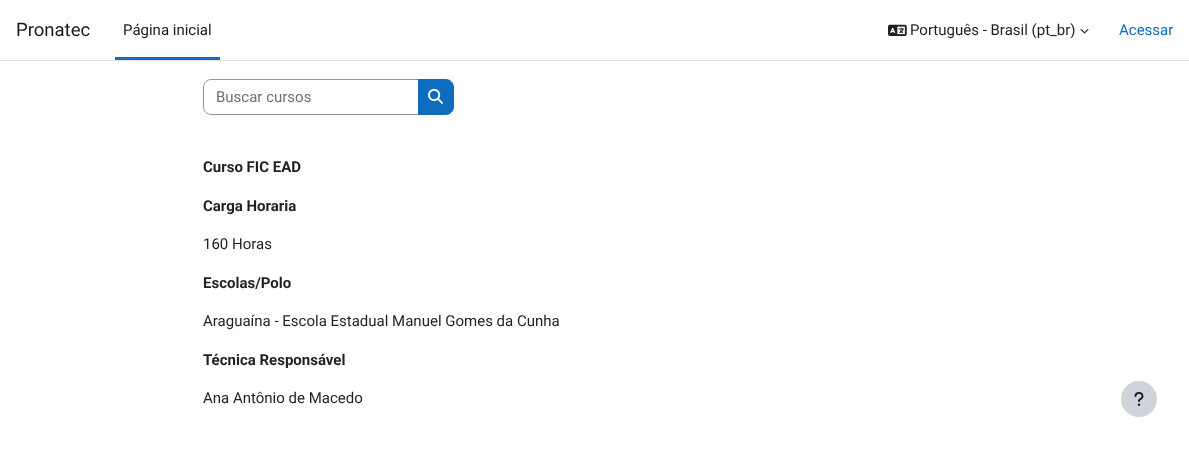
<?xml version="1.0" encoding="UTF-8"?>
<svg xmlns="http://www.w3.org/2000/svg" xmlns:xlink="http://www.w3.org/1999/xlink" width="1189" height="449">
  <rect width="100%" height="100%" fill="#ffffff" />
  <rect y="60" width="1189" height="1" fill="#dee2e6" />
  <rect x="115" y="57" width="105" height="3" fill="#0f6cbf" />
  <image x="888" y="24" width="19" height="12" xlink:href="image1.png" />
  <image x="1080" y="29" width="9" height="5" xlink:href="image2.png" />
  <path d="M 211 79.5 h 207.5 v 35 h -207.5 c -4 0 -7.5 -3.5 -7.5 -7.5 v -20 c 0 -4 3.5 -7.5 7.5 -7.5 z" fill="none" stroke="#8f959e" />
  <path d="M 418.5 79.5 h 27.5 c 4 0 7.5 3.5 7.5 7.5 v 20 c 0 4 -3.5 7.5 -7.5 7.5 h -27.5 z" fill="#0f6cbf" stroke="#0f6cbf" />
  <image x="428" y="88" width="15" height="16" xlink:href="image3.png" />
  <circle cx="1139" cy="399" r="18" fill="#ced4da" />
  <image x="1134" y="392" width="10" height="14" xlink:href="image4.png" />
  <text x="16" y="36" style="font-family: Roboto; font-size: 18.5px; fill: #1a1a1a">Pronatec</text>
  <text x="123" y="35" style="font-family: Roboto; font-size: 15px; fill: #1a1a1a">Página inicial</text>
  <text x="910" y="35" style="font-family: Roboto; font-size: 15px; fill: #1d2125">Português - Brasil (pt_br)</text>
  <text x="1119" y="35" style="font-family: Roboto; font-size: 15px; fill: #0f6cbf">Acessar</text>
  <text x="216" y="102" style="font-family: Roboto; font-size: 15px; fill: #6a737b">Buscar cursos</text>
  <text x="203" y="172" style="font-family: Roboto; font-size: 15px; font-weight: bold; fill: #1d2125">Curso FIC EAD</text>
  <text x="203" y="211" style="font-family: Roboto; font-size: 15px; font-weight: bold; fill: #1d2125">Carga Horaria</text>
  <text x="203" y="249" style="font-family: Roboto; font-size: 15px; fill: #1d2125">160 Horas</text>
  <text x="203" y="288" style="font-family: Roboto; font-size: 15px; font-weight: bold; fill: #1d2125">Escolas/Polo</text>
  <text x="203" y="326" style="font-family: Roboto; font-size: 15px; fill: #1d2125">Araguaína - Escola Estadual Manuel Gomes da Cunha</text>
  <text x="203" y="365" style="font-family: Roboto; font-size: 15px; font-weight: bold; fill: #1d2125">Técnica Responsável</text>
  <text x="203" y="403" style="font-family: Roboto; font-size: 15px; fill: #1d2125">Ana Antônio de Macedo</text>
</svg>
